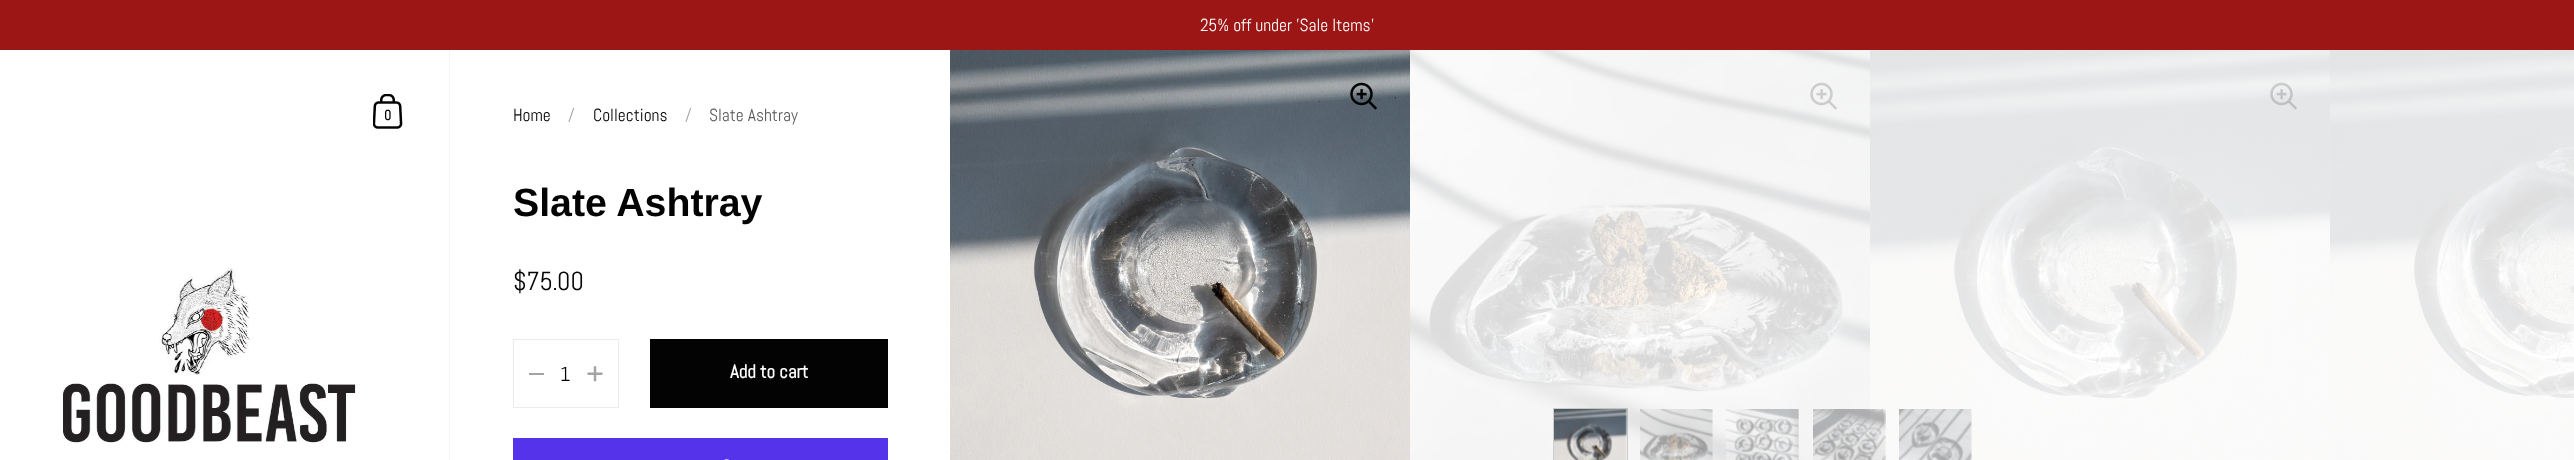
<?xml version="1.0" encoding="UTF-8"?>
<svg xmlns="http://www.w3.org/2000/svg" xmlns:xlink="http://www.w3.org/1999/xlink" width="2574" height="460">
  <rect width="100%" height="100%" fill="#ffffff" />
  <rect width="2574" height="50" fill="#9c1616" />
  <rect x="449" y="50" width="1" height="410" fill="#f5f5f5" />
  <image x="373" y="94" width="30" height="35" xlink:href="image1.png" />
  <image x="63" y="267" width="293" height="176" xlink:href="image2.png" />
  <rect x="513.5" y="339.5" width="105" height="68" fill="none" stroke="#ebebeb" />
  <rect x="529" y="373" width="15" height="2" fill="#a4a4a4" />
  <image x="587" y="366" width="16" height="16" xlink:href="image3.png" />
  <rect x="650" y="339" width="238" height="69" fill="#030303" />
  <rect x="513" y="438" width="375" height="22" fill="#5433eb" />
  <image x="724" y="459" width="5" height="1" xlink:href="image4.png" />
  <image x="950" y="50" width="460" height="410" xlink:href="image5.png" />
  <image x="1350" y="82" width="27" height="28" xlink:href="image6.png" />
  <image x="1410" y="50" width="460" height="410" xlink:href="image7.png" />
  <image x="1810" y="82" width="27" height="28" xlink:href="image8.png" />
  <image x="1870" y="50" width="460" height="410" xlink:href="image9.png" />
  <image x="2270" y="82" width="27" height="28" xlink:href="image10.png" />
  <image x="2330" y="50" width="244" height="410" xlink:href="image11.png" />
  <rect x="1553.5" y="408.5" width="74" height="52" fill="none" stroke="#030303" stroke-opacity="0.16" />
  <image x="1554" y="409" width="73" height="51" xlink:href="image12.png" />
  <image x="1640" y="409" width="73" height="51" xlink:href="image13.png" />
  <image x="1726" y="409" width="73" height="51" xlink:href="image14.png" />
  <image x="1813" y="409" width="73" height="51" xlink:href="image15.png" />
  <image x="1899" y="409" width="73" height="51" xlink:href="image16.png" />
  <text x="1200" y="31" style="font-family: Abel; font-size: 17.5px; fill: #ffffff">25% off under 'Sale Items'</text>
  <text x="384" y="120" style="font-family: Abel; font-size: 14px; font-weight: bold; fill: #030303">0</text>
  <text x="513" y="121" style="font-family: Abel; font-size: 17.5px; fill: #030303">Home</text>
  <text x="568" y="121" style="font-family: Abel; font-size: 17.5px; fill: #a4a4a4">/</text>
  <text x="593" y="121" style="font-family: Abel; font-size: 17.5px; fill: #030303">Collections</text>
  <text x="685" y="121" style="font-family: Abel; font-size: 17.5px; fill: #a4a4a4">/</text>
  <text x="709" y="121" style="font-family: Abel; font-size: 17.5px; fill: #595959">Slate Ashtray</text>
  <text x="513" y="216" style="font-family: Arimo; font-size: 39.25px; font-weight: bold; fill: #030303">Slate Ashtray</text>
  <text x="513" y="290" style="font-family: Abel; font-size: 26px; fill: #030303">$75.00</text>
  <text x="560" y="381" style="font-family: Abel; font-size: 20px; fill: #030303">1</text>
  <text x="730" y="378" style="font-family: Abel; font-size: 18.75px; font-weight: bold; fill: #ffffff">Add to cart</text>
</svg>
